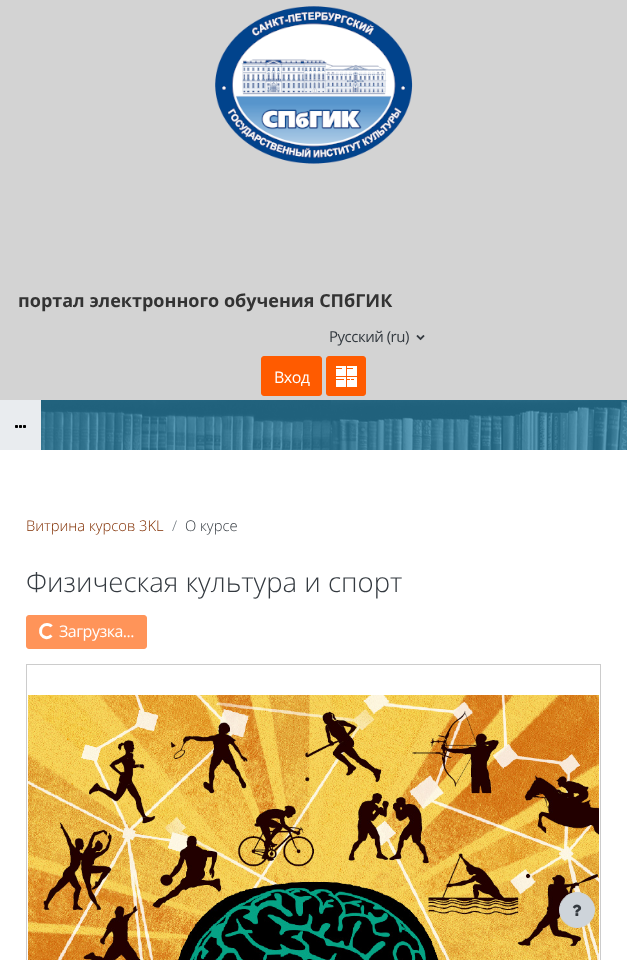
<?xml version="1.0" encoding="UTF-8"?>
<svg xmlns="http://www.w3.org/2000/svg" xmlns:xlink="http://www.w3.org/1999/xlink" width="627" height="960">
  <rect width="100%" height="100%" fill="#ffffff" />
  <rect width="627" height="400" fill="#d3d3d3" />
  <image x="215" y="6" width="198" height="158" xlink:href="image1.png" />
  <image x="416" y="335" width="9" height="6" xlink:href="image2.png" />
  <rect x="261.5" y="356.5" width="60" height="39" rx="2.5" fill="#ff5b00" stroke="#ff5b00" />
  <rect x="326.5" y="356.5" width="39" height="39" rx="2.5" fill="#ff5b00" stroke="#ff5b00" />
  <image x="336" y="366" width="21" height="21" xlink:href="image3.png" />
  <rect x="41" y="400" width="586" height="50" fill="#297fa2" />
  <image x="41" y="400" width="586" height="50" xlink:href="image4.png" />
  <rect y="400" width="41" height="50" fill="#e9ecef" />
  <image x="15" y="425" width="11" height="3" xlink:href="image5.png" />
  <rect x="26.5" y="615.5" width="120" height="33" rx="2.5" fill="#ff9459" stroke="#ff9459" />
  <path d="M 51.5 635.5 c -1.5 1.5 -3.5 2.5 -6 2 c -7.5 -1.5 -6 -13 1.5 -13 c 1.5 0 3.5 0.5 4.5 2" fill="none" stroke="#ffffff" stroke-width="3" />
  <image x="28" y="695" width="571" height="265" xlink:href="image6.png" />
  <rect x="26.5" y="664.5" width="574" height="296" fill="none" stroke="#cccccc" />
  <circle cx="577" cy="910" r="17.5" fill="#ced4da" stroke="#ced4da" />
  <image x="572" y="904" width="10" height="12" xlink:href="image7.png" />
  <text x="18" y="307" style="font-family: Open Sans; font-size: 18px; font-weight: bold; fill: #333333">портал электронного обучения СПбГИК</text>
  <text x="329" y="342" style="font-family: Open Sans; font-size: 15px; letter-spacing: -0.5px; fill: #343a40">Русский (ru)</text>
  <text x="274" y="383" style="font-family: Open Sans; font-size: 16px; letter-spacing: -0.5px; fill: #ffffff">Вход</text>
  <text x="26" y="531" style="font-family: Open Sans; font-size: 14.75px; font-weight: 300; fill: #802e00">Витрина курсов 3KL</text>
  <text x="172" y="531" style="font-family: Open Sans; font-size: 14.75px; font-weight: 300; fill: #6c757d">/</text>
  <text x="185" y="531" style="font-family: Open Sans; font-size: 14.75px; font-weight: 300; fill: #343a40">О курсе</text>
  <text x="26" y="592" style="font-family: Open Sans; font-size: 27.5px; font-weight: 300; fill: #343a40">Физическая культура и спорт</text>
  <text x="59" y="637" style="font-family: Open Sans; font-size: 16px; letter-spacing: -0.5px; fill: #ffffff">Загрузка...</text>
</svg>
